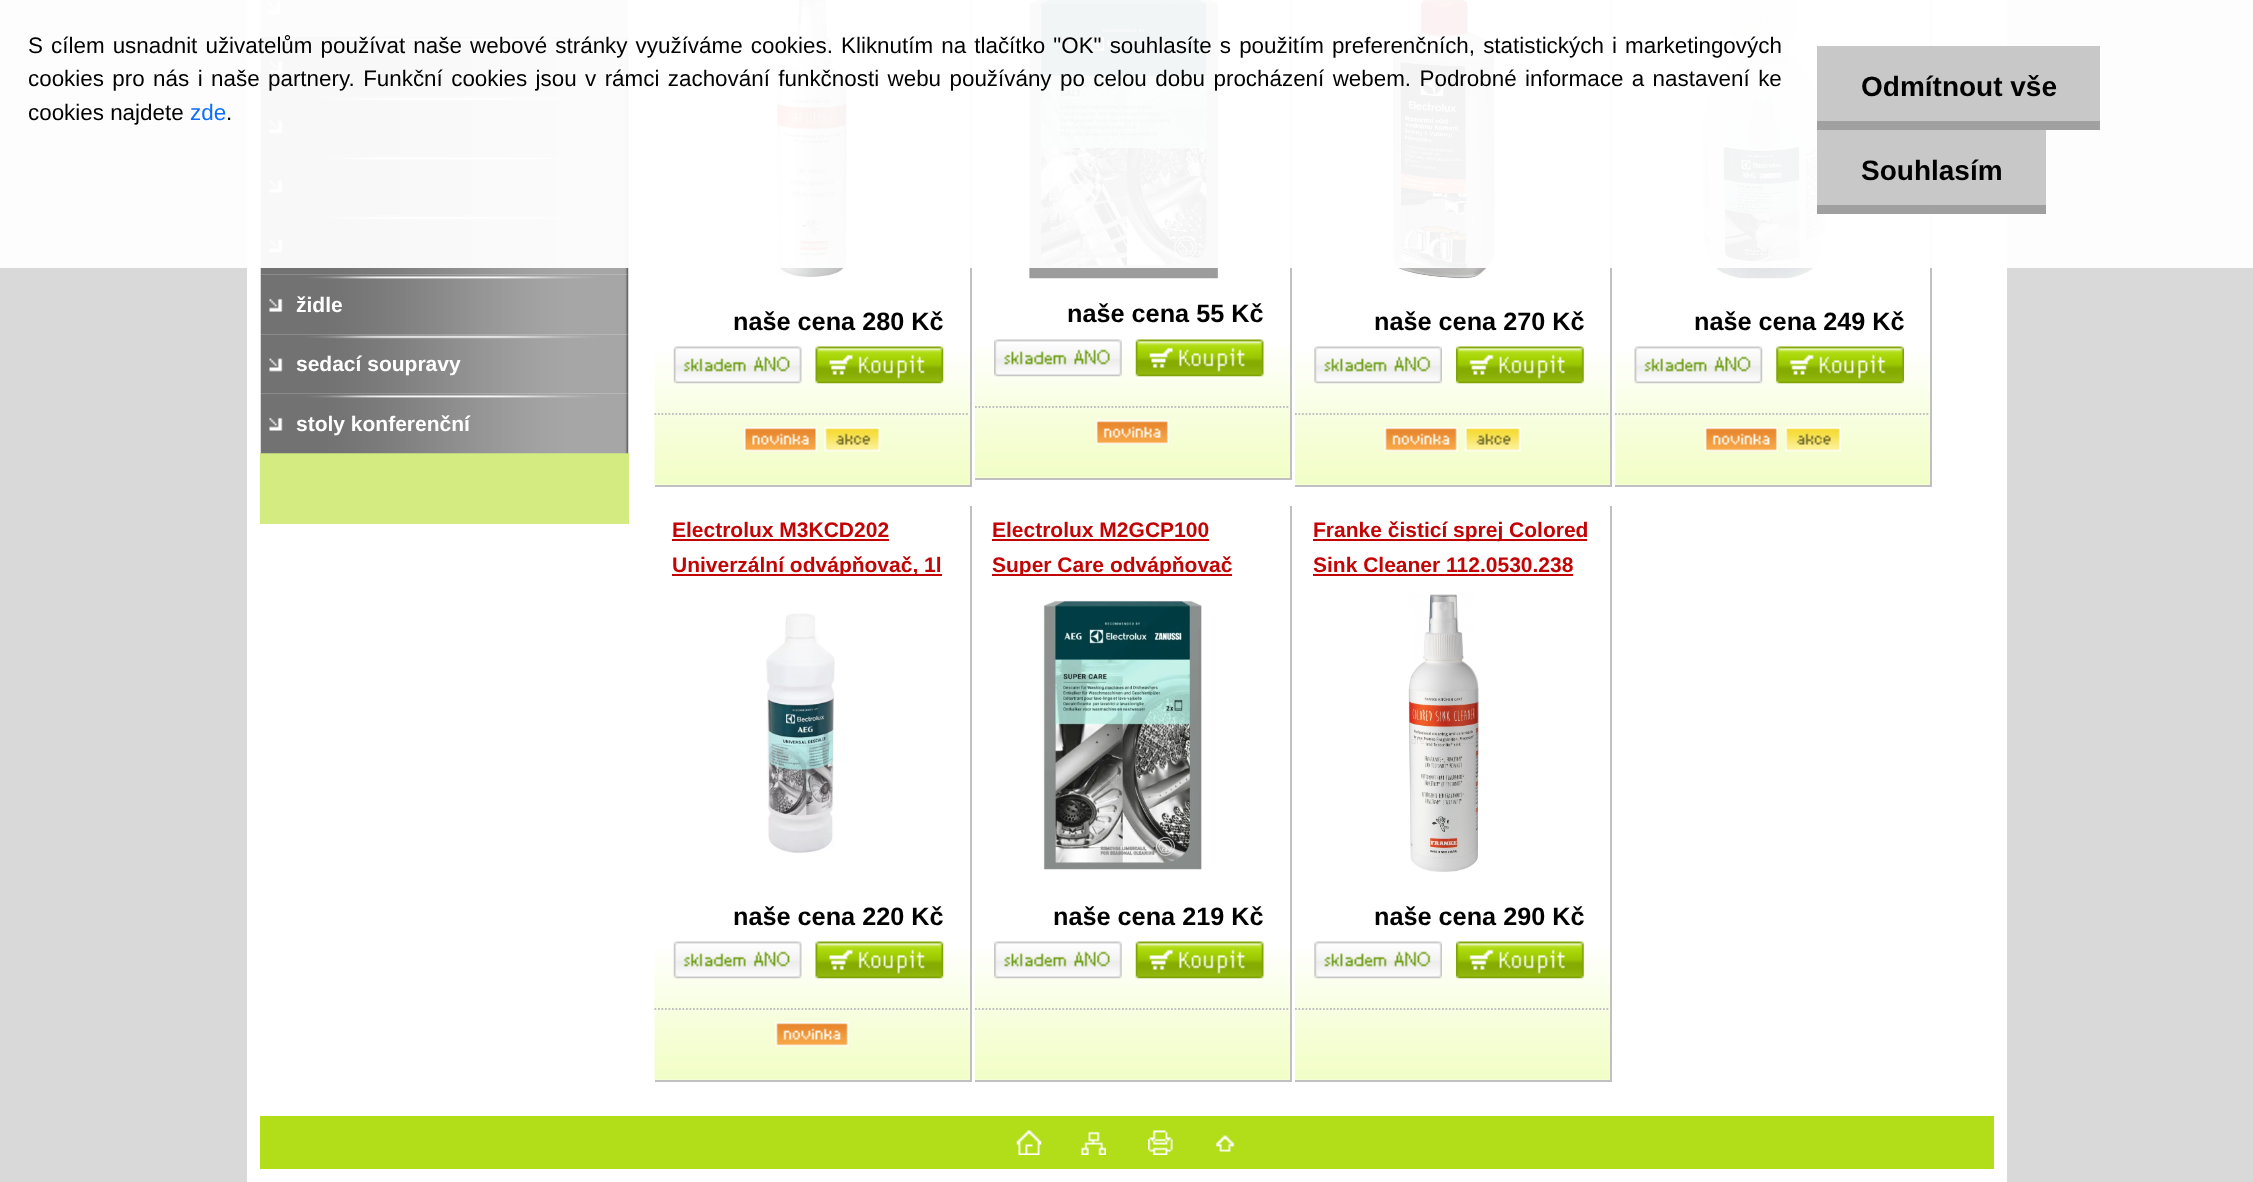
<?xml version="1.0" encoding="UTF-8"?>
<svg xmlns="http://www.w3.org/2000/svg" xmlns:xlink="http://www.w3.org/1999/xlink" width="2253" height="1182">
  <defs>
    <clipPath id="clip1"><rect x="655" y="506" width="315" height="70" /></clipPath>
    <clipPath id="clip2"><rect x="975" y="506" width="315" height="70" /></clipPath>
  </defs>
  <rect width="100%" height="100%" fill="#d9d9d9" />
  <rect x="247" width="1760" height="1182" fill="#ffffff" />
  <image x="260" y="0" width="369" height="37" xlink:href="image1.png" />
  <image x="260" y="36" width="369" height="61" xlink:href="image2.png" />
  <image x="260" y="96" width="369" height="60" xlink:href="image3.png" />
  <image x="260" y="155" width="369" height="61" xlink:href="image4.png" />
  <image x="260" y="215" width="369" height="60" xlink:href="image5.png" />
  <rect x="970" width="2" height="487" fill="#c0c0c0" />
  <image x="777" y="0" width="70" height="277" xlink:href="image9.png" />
  <rect x="1290" width="2" height="480" fill="#c0c0c0" />
  <image x="1029" y="0" width="189" height="279" xlink:href="image15.png" />
  <rect x="1610" width="2" height="487" fill="#c0c0c0" />
  <image x="1393" y="0" width="102" height="279" xlink:href="image20.png" />
  <rect x="1930" width="2" height="487" fill="#c0c0c0" />
  <image x="1701" y="0" width="126" height="279" xlink:href="image26.png" />
  <rect width="2253" height="268" fill="#ffffff" fill-opacity="0.95" />
  <rect x="1817" y="46" width="283" height="75" fill="#c8c8c8" />
  <rect x="1817" y="121" width="283" height="9" fill="#a0a0a0" />
  <rect x="1817" y="130" width="229" height="75" fill="#c8c8c8" />
  <rect x="1817" y="205" width="229" height="9" fill="#a0a0a0" />
  <image x="260" y="274" width="369" height="61" xlink:href="image6.png" />
  <image x="260" y="334" width="369" height="60" xlink:href="image3.png" />
  <rect x="260" y="453" width="369" height="71" fill="#d3eb80" />
  <image x="260" y="393" width="369" height="61" xlink:href="image7.png" />
  <image x="654" y="353" width="316" height="132" xlink:href="image8.png" />
  <rect x="655" y="485" width="316" height="2" fill="#c0c0c0" />
  <image x="673" y="346" width="129" height="38" xlink:href="image10.png" />
  <image x="815" y="346" width="129" height="38" xlink:href="image11.png" />
  <path d="M 654.5 414 h 315" fill="none" stroke="#c0c0c0" stroke-width="1.8" stroke-dasharray="1.75 1.75" />
  <image x="743" y="427" width="75" height="25" xlink:href="image12.png" />
  <image x="824" y="427" width="57" height="25" xlink:href="image13.png" />
  <image x="974" y="346" width="316" height="132" xlink:href="image14.png" />
  <rect x="975" y="478" width="317" height="2" fill="#c0c0c0" />
  <image x="994" y="339" width="128" height="38" xlink:href="image16.png" />
  <image x="1135" y="339" width="129" height="38" xlink:href="image17.png" />
  <path d="M 975 407 h 315" fill="none" stroke="#c0c0c0" stroke-width="1.8" stroke-dasharray="1.75 1.75" />
  <image x="1095" y="420" width="74" height="25" xlink:href="image18.png" />
  <image x="1295" y="353" width="315" height="132" xlink:href="image19.png" />
  <rect x="1295" y="485" width="317" height="2" fill="#c0c0c0" />
  <image x="1314" y="346" width="128" height="38" xlink:href="image21.png" />
  <image x="1456" y="346" width="128" height="38" xlink:href="image22.png" />
  <path d="M 1295 414 h 315" fill="none" stroke="#c0c0c0" stroke-width="1.8" stroke-dasharray="1.75 1.75" />
  <image x="1384" y="427" width="74" height="25" xlink:href="image23.png" />
  <image x="1464" y="427" width="57" height="25" xlink:href="image24.png" />
  <image x="1615" y="353" width="315" height="132" xlink:href="image25.png" />
  <rect x="1615" y="485" width="317" height="2" fill="#c0c0c0" />
  <image x="1634" y="346" width="129" height="38" xlink:href="image27.png" />
  <image x="1776" y="346" width="128" height="38" xlink:href="image28.png" />
  <path d="M 1615 414 h 315" fill="none" stroke="#c0c0c0" stroke-width="1.8" stroke-dasharray="1.75 1.75" />
  <image x="1704" y="427" width="74" height="25" xlink:href="image18.png" />
  <image x="1785" y="427" width="56" height="25" xlink:href="image29.png" />
  <image x="654" y="949" width="316" height="131" xlink:href="image30.png" />
  <rect x="970" y="506" width="2" height="576" fill="#c0c0c0" />
  <rect x="655" y="1080" width="316" height="2" fill="#c0c0c0" />
  <rect x="672" y="539" width="217" height="2" fill="#c30405" />
  <rect x="672" y="574" width="270" height="2" fill="#c30405" />
  <image x="766" y="613" width="69" height="240" xlink:href="image31.png" />
  <image x="673" y="941" width="129" height="38" xlink:href="image32.png" />
  <image x="815" y="941" width="129" height="38" xlink:href="image33.png" />
  <path d="M 654.5 1009 h 315" fill="none" stroke="#c0c0c0" stroke-width="1.8" stroke-dasharray="1.75 1.75" />
  <image x="775" y="1022" width="74" height="25" xlink:href="image23.png" />
  <image x="974" y="949" width="316" height="131" xlink:href="image34.png" />
  <rect x="1290" y="506" width="2" height="576" fill="#c0c0c0" />
  <rect x="975" y="1080" width="317" height="2" fill="#c0c0c0" />
  <rect x="992" y="539" width="217" height="2" fill="#c30405" />
  <rect x="992" y="574" width="240" height="2" fill="#c30405" />
  <image x="1043" y="600" width="159" height="270" xlink:href="image35.png" />
  <image x="994" y="941" width="128" height="38" xlink:href="image36.png" />
  <image x="1135" y="941" width="129" height="38" xlink:href="image37.png" />
  <path d="M 975 1009 h 315" fill="none" stroke="#c0c0c0" stroke-width="1.8" stroke-dasharray="1.75 1.75" />
  <image x="1295" y="949" width="315" height="131" xlink:href="image38.png" />
  <rect x="1610" y="506" width="2" height="576" fill="#c0c0c0" />
  <rect x="1295" y="1080" width="317" height="2" fill="#c0c0c0" />
  <rect x="1313" y="539" width="274" height="2" fill="#c30405" />
  <rect x="1313" y="574" width="260" height="2" fill="#c30405" />
  <image x="1408" y="594" width="71" height="278" xlink:href="image39.png" />
  <image x="1314" y="941" width="128" height="38" xlink:href="image40.png" />
  <image x="1456" y="941" width="128" height="38" xlink:href="image41.png" />
  <path d="M 1295 1009 h 315" fill="none" stroke="#c0c0c0" stroke-width="1.8" stroke-dasharray="1.75 1.75" />
  <rect x="260" y="1116" width="1734" height="53" fill="#b2de19" />
  <image x="1016" y="1130" width="26" height="25" xlink:href="image42.png" />
  <image x="1081" y="1131" width="25" height="24" xlink:href="image43.png" />
  <image x="1148" y="1130" width="25" height="25" xlink:href="image44.png" />
  <image x="1215" y="1135" width="20" height="17" xlink:href="image45.png" />
  <text x="28" y="53" word-spacing="1.9" style="font-family: Liberation Sans; font-size: 22.4px; fill: #000000">S cílem usnadnit uživatelům používat naše webové stránky využíváme cookies. Kliknutím na tlačítko "OK" souhlasíte s použitím preferenčních, statistických i marketingových</text>
  <text x="28" y="86" word-spacing="2.2" style="font-family: Liberation Sans; font-size: 22.4px; fill: #000000">cookies pro nás i naše partnery. Funkční cookies jsou v rámci zachování funkčnosti webu používány po celou dobu procházení webem. Podrobné informace a nastavení ke</text>
  <text x="28" y="120" style="font-family: Liberation Sans; font-size: 22.4px; fill: #000000">cookies najdete</text>
  <text x="190" y="120" style="font-family: Liberation Sans; font-size: 22.4px; fill: #0d6efd">zde</text>
  <text x="226" y="120" style="font-family: Liberation Sans; font-size: 22.4px; fill: #000000">.</text>
  <text x="1861" y="96" style="font-family: Liberation Sans; font-size: 28px; font-weight: bold; fill: #000000">Odmítnout vše</text>
  <text x="1861" y="180" style="font-family: Liberation Sans; font-size: 28px; font-weight: bold; fill: #000000">Souhlasím</text>
  <text x="296" y="312" style="font-family: Liberation Sans; font-size: 21px; font-weight: bold; fill: #ffffff">židle</text>
  <text x="296" y="371" style="font-family: Liberation Sans; font-size: 21px; font-weight: bold; fill: #ffffff">sedací soupravy</text>
  <text x="296" y="431" style="font-family: Liberation Sans; font-size: 21px; font-weight: bold; fill: #ffffff">stoly konferenční</text>
  <text x="733" y="330" style="font-family: Liberation Sans; font-size: 25.25px; font-weight: bold; fill: #000000">naše cena 280 Kč</text>
  <text x="1067" y="322" style="font-family: Liberation Sans; font-size: 25.25px; font-weight: bold; fill: #000000">naše cena 55 Kč</text>
  <text x="1374" y="330" style="font-family: Liberation Sans; font-size: 25.25px; font-weight: bold; fill: #000000">naše cena 270 Kč</text>
  <text x="1694" y="330" style="font-family: Liberation Sans; font-size: 25.25px; font-weight: bold; fill: #000000">naše cena 249 Kč</text>
  <text x="672" y="537" style="font-family: Liberation Sans; font-size: 21px; font-weight: bold; fill: #c30405">Electrolux M3KCD202</text>
  <g clip-path="url(#clip1)">
    <text x="672" y="572" style="font-family: Liberation Sans; font-size: 21px; font-weight: bold; fill: #c30405">Univerzální odvápňovač, 1l</text>
  </g>
  <text x="733" y="925" style="font-family: Liberation Sans; font-size: 25.25px; font-weight: bold; fill: #000000">naše cena 220 Kč</text>
  <text x="992" y="537" style="font-family: Liberation Sans; font-size: 21px; font-weight: bold; fill: #c30405">Electrolux M2GCP100</text>
  <g clip-path="url(#clip2)">
    <text x="992" y="572" style="font-family: Liberation Sans; font-size: 21px; font-weight: bold; fill: #c30405">Super Care odvápňovač</text>
  </g>
  <text x="1053" y="925" style="font-family: Liberation Sans; font-size: 25.25px; font-weight: bold; fill: #000000">naše cena 219 Kč</text>
  <text x="1313" y="537" style="font-family: Liberation Sans; font-size: 21px; font-weight: bold; fill: #c30405">Franke čisticí sprej Colored</text>
  <text x="1313" y="572" style="font-family: Liberation Sans; font-size: 21px; font-weight: bold; fill: #c30405">Sink Cleaner 112.0530.238</text>
  <text x="1374" y="925" style="font-family: Liberation Sans; font-size: 25.25px; font-weight: bold; fill: #000000">naše cena 290 Kč</text>
</svg>
